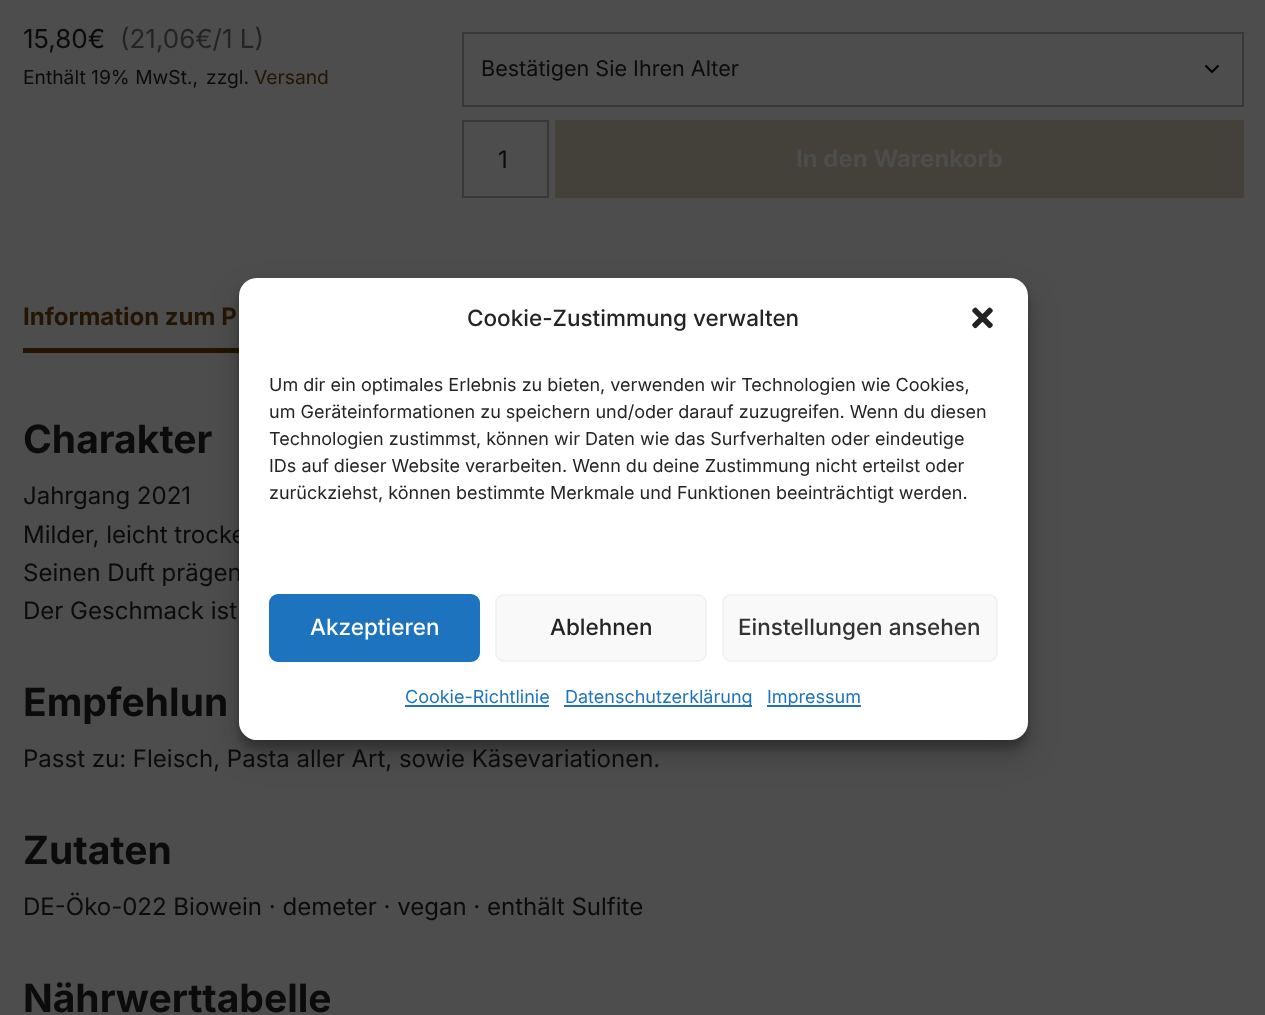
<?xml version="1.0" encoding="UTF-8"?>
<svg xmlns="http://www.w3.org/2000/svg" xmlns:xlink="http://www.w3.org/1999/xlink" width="1265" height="1015">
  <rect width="100%" height="100%" fill="#4d4d4d" />
  <path d="M 1206 66 l 6 6 l 6 -6" fill="none" stroke="#000000" stroke-width="2" stroke-linecap="round" stroke-linejoin="round" />
  <rect x="463" y="33" width="780" height="73" fill="none" stroke="#383838" stroke-width="2" />
  <rect x="463" y="121" width="85" height="76" fill="none" stroke="#383838" stroke-width="2" />
  <rect x="555" y="120" width="689" height="78" fill="#44403a" />
  <rect x="23" y="348" width="216" height="5" fill="#231404" />
  <rect x="239" y="287" width="789" height="462" rx="18" fill="#000000" fill-opacity="0.23" filter="blur(4.5px)" />
  <rect x="239" y="293" width="789" height="462" rx="18" fill="#000000" fill-opacity="0.19" filter="blur(15px)" />
  <text x="23" y="48" style="font-family: Inter; font-size: 26px; fill: #0c0b0b">15,80€</text>
  <text x="120" y="48" style="font-family: Inter; font-size: 26px; fill: #242424">(21,06€/1 L)</text>
  <text x="23" y="84" style="font-family: Inter; font-size: 19.25px; fill: #0c0b0b">Enthält 19% MwSt.,</text>
  <text x="206" y="84" style="font-family: Inter; font-size: 19.25px; fill: #0c0b0b">zzgl.</text>
  <text x="254" y="84" style="font-family: Inter; font-size: 19.25px; fill: #231404">Versand</text>
  <text x="481" y="76" style="font-family: Inter; font-size: 21.6px; fill: #0c0b0b">Bestätigen Sie Ihren Alter</text>
  <text x="498" y="168" style="font-family: Inter; font-size: 24px; fill: #0c0b0b">1</text>
  <text x="796" y="167" style="font-family: Inter; font-size: 24px; font-weight: bold; fill: #4d4d4d">In den Warenkorb</text>
  <text x="23" y="325" style="font-family: Inter; font-size: 24px; font-weight: bold; fill: #231404">Information zum P</text>
  <text x="23" y="453" style="font-family: Inter; font-size: 39px; font-weight: bold; fill: #0c0b0b">Charakter</text>
  <text x="23" y="504" style="font-family: Inter; font-size: 24px; fill: #0c0b0b">Jahrgang 2021</text>
  <text x="23" y="543" style="font-family: Inter; font-size: 24px; fill: #0c0b0b">Milder, leicht trocke</text>
  <text x="23" y="581" style="font-family: Inter; font-size: 24px; fill: #0c0b0b">Seinen Duft prägen</text>
  <text x="23" y="619" style="font-family: Inter; font-size: 24px; fill: #0c0b0b">Der Geschmack ist</text>
  <text x="23" y="716" style="font-family: Inter; font-size: 39px; font-weight: bold; fill: #0c0b0b">Empfehlun</text>
  <text x="23" y="767" style="font-family: Inter; font-size: 24px; fill: #0c0b0b">Passt zu: Fleisch, Pasta aller Art, sowie Käsevariationen.</text>
  <text x="23" y="864" style="font-family: Inter; font-size: 39px; font-weight: bold; fill: #0c0b0b">Zutaten</text>
  <text x="23" y="915" style="font-family: Inter; font-size: 24px; fill: #0c0b0b">DE-Öko-022 Biowein · demeter · vegan · enthält Sulfite</text>
  <text x="23" y="1012" style="font-family: Inter; font-size: 39px; font-weight: bold; fill: #0c0b0b">Nährwerttabelle</text>
  <rect x="239" y="278" width="789" height="462" rx="18" fill="#ffffff" />
  <text x="467" y="326" style="font-family: Inter; font-size: 22.5px; font-weight: 500; fill: #242424">Cookie-Zustimmung verwalten</text>
  <image x="972" y="307" width="21" height="22" xlink:href="image1.png" />
  <text x="269" y="391" style="font-family: Inter; font-size: 18px; fill: #242424">Um dir ein optimales Erlebnis zu bieten, verwenden wir Technologien wie Cookies,</text>
  <text x="269" y="418" style="font-family: Inter; font-size: 18px; fill: #242424">um Geräteinformationen zu speichern und/oder darauf zuzugreifen. Wenn du diesen</text>
  <text x="269" y="445" style="font-family: Inter; font-size: 18px; fill: #242424">Technologien zustimmst, können wir Daten wie das Surfverhalten oder eindeutige</text>
  <text x="269" y="472" style="font-family: Inter; font-size: 18px; fill: #242424">IDs auf dieser Website verarbeiten. Wenn du deine Zustimmung nicht erteilst oder</text>
  <text x="269" y="499" style="font-family: Inter; font-size: 18px; fill: #242424">zurückziehst, können bestimmte Merkmale und Funktionen beeinträchtigt werden.</text>
  <rect x="270" y="595" width="209" height="66" rx="8" fill="#1e73be" stroke="#1e73be" stroke-width="2" />
  <text x="310" y="635" style="font-family: Inter; font-size: 22.5px; font-weight: 500; fill: #ffffff">Akzeptieren</text>
  <rect x="496" y="595" width="210" height="66" rx="8" fill="#f9f9f9" stroke="#f2f2f2" stroke-width="2" />
  <text x="550" y="635" style="font-family: Inter; font-size: 22.5px; font-weight: 500; fill: #242424">Ablehnen</text>
  <rect x="723" y="595" width="274" height="66" rx="8" fill="#f9f9f9" stroke="#f2f2f2" stroke-width="2" />
  <text x="738" y="635" style="font-family: Inter; font-size: 22.5px; font-weight: 500; fill: #333333">Einstellungen ansehen</text>
  <text x="405" y="703" style="font-family: Inter; font-size: 18px; fill: #1e73be">Cookie-Richtlinie</text>
  <rect x="405" y="705" width="144" height="2" fill="#1e73be" />
  <rect x="564" y="705" width="188" height="2" fill="#1e73be" />
  <text x="565" y="703" style="font-family: Inter; font-size: 18px; fill: #1e73be">Datenschutzerklärung</text>
  <rect x="767" y="705" width="94" height="2" fill="#1e73be" />
  <text x="767" y="703" style="font-family: Inter; font-size: 18px; fill: #1e73be">Impressum</text>
</svg>
